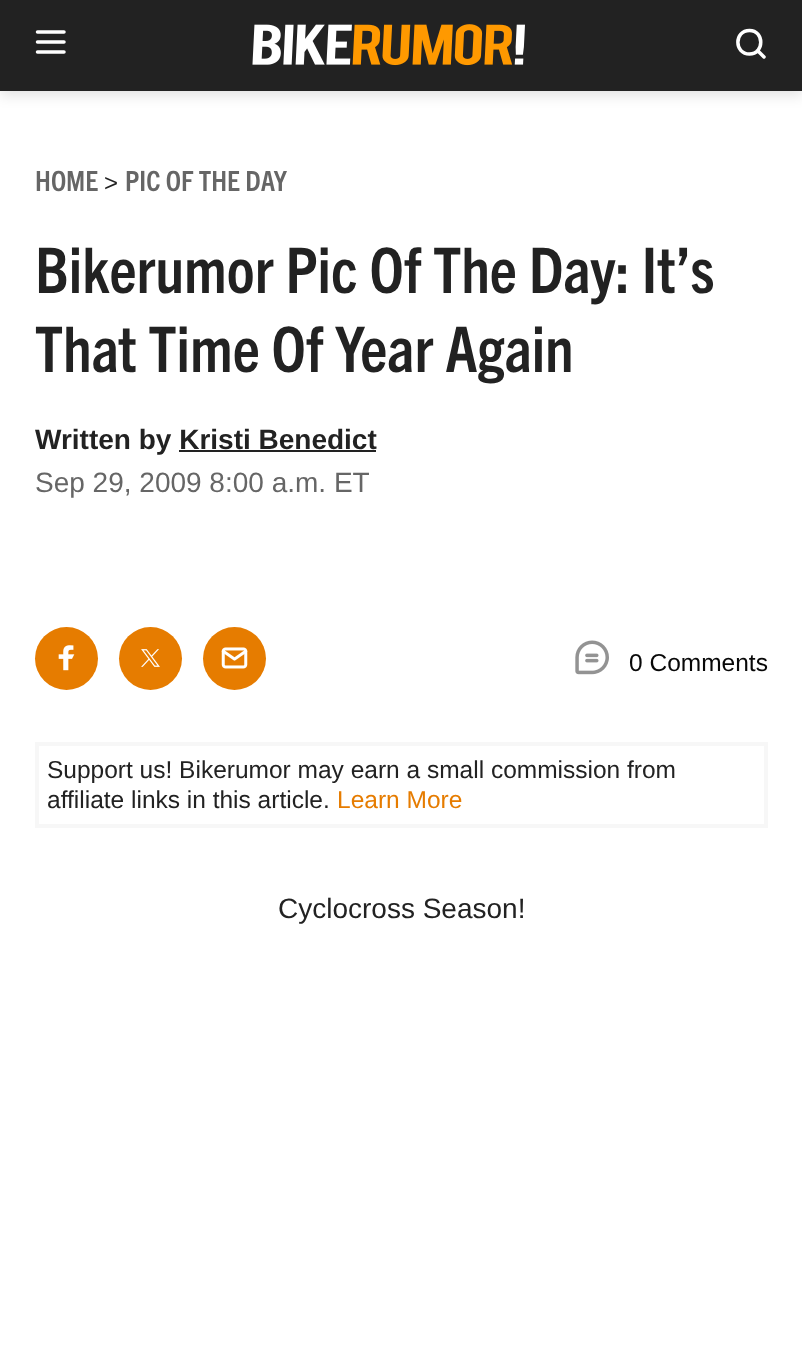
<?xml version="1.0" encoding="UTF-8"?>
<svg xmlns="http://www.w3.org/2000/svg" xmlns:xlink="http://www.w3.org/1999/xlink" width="802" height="1364">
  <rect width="100%" height="100%" fill="#ffffff" />
  <rect y="4" width="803" height="91" fill="#000000" fill-opacity="0.12" filter="blur(7px)" />
  <rect width="802" height="91" fill="#222222" />
  <path d="M 37.5 42 h 26.5 m -26.5 -10 h 26.5 m -26.5 20 h 26.5" fill="none" stroke="#ffffff" stroke-width="3.5" stroke-linecap="round" stroke-linejoin="round" />
  <image x="252" y="24" width="273" height="42" xlink:href="image1.png" />
  <path d="M 749.5 54 c 15 0 15 -23.5 0 -23.5 c -15.5 0 -15.5 23.5 0 23.5 z m 14.5 3 l -6.5 -6.5" fill="none" stroke="#ffffff" stroke-width="3.5" stroke-linecap="round" stroke-linejoin="round" />
  <rect x="179" y="450" width="197" height="2" fill="#222222" />
  <circle cx="66.5" cy="658.5" r="31.5" fill="#e67c00" />
  <image x="58" y="645" width="17" height="26" xlink:href="image2.png" />
  <circle cx="150.5" cy="658.5" r="31.5" fill="#e67c00" />
  <image x="141" y="649" width="19" height="18" xlink:href="image3.png" />
  <circle cx="234.5" cy="658.5" r="31.5" fill="#e67c00" />
  <image x="221" y="647" width="27" height="22" xlink:href="image4.png" />
  <image x="575" y="640" width="34" height="35" xlink:href="image5.png" />
  <rect x="37" y="744" width="729" height="82" fill="none" stroke="#f7f7f7" stroke-width="4" />
  <text x="35" y="191" style="font-family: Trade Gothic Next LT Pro; font-size: 28px; font-weight: bold; fill: #666666">HOME</text>
  <text x="104" y="191" style="font-family: Liberation Sans; font-size: 24px; fill: #222222">&gt;</text>
  <text x="125" y="191" style="font-family: Trade Gothic Next LT Pro; font-size: 28px; font-weight: bold; fill: #666666">PIC OF THE DAY</text>
  <text x="35" y="293" style="font-family: Trade Gothic Next LT Pro; font-size: 63px; font-weight: bold; fill: #222222">Bikerumor Pic Of The Day: It’s</text>
  <text x="35" y="372" style="font-family: Trade Gothic Next LT Pro; font-size: 63px; font-weight: bold; fill: #222222">That Time Of Year Again</text>
  <text x="35" y="449" style="font-family: Liberation Sans; font-size: 28px; font-weight: bold; fill: #222222">Written by Kristi Benedict</text>
  <text x="35" y="492" style="font-family: Liberation Sans; font-size: 28px; fill: #666666">Sep 29, 2009 8:00 a.m. ET</text>
  <text x="629" y="671" style="font-family: Liberation Sans; font-size: 24.5px; fill: #080808">0 Comments</text>
  <text x="47" y="778" style="font-family: Liberation Sans; font-size: 24.5px; fill: #222222">Support us! Bikerumor may earn a small commission from</text>
  <text x="47" y="808" style="font-family: Liberation Sans; font-size: 24.5px; fill: #222222">affiliate links in this article.</text>
  <text x="337" y="808" style="font-family: Liberation Sans; font-size: 24.5px; fill: #e67c00">Learn More</text>
  <text x="278" y="918" style="font-family: Liberation Sans; font-size: 28px; fill: #222222">Cyclocross Season!</text>
</svg>
